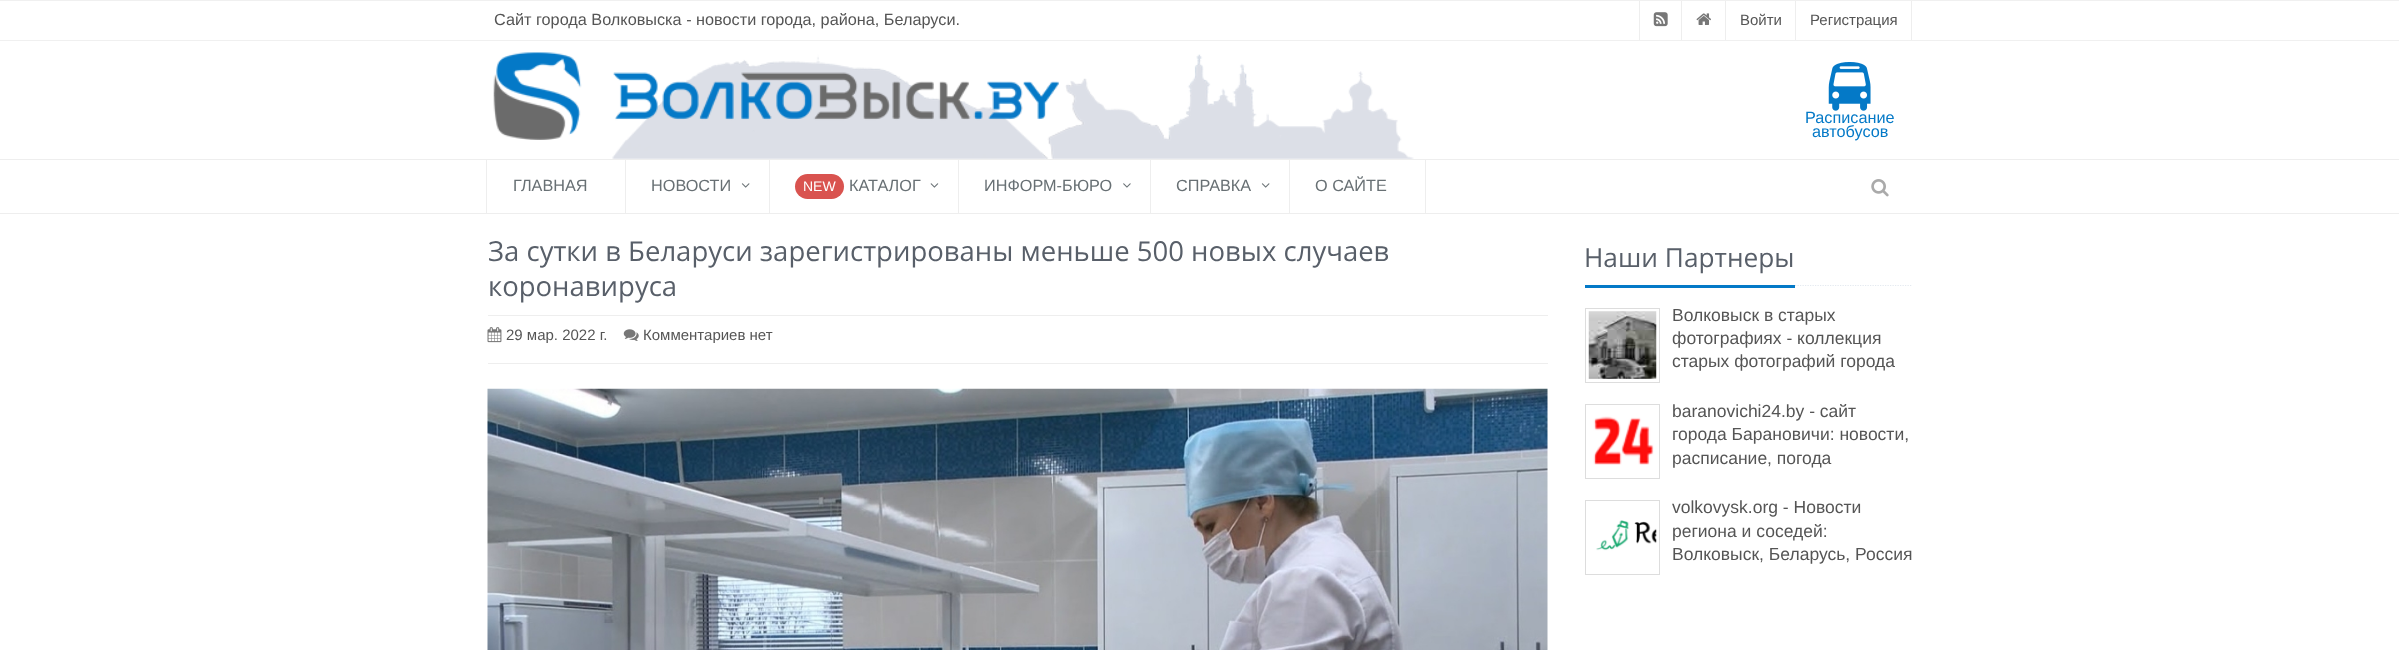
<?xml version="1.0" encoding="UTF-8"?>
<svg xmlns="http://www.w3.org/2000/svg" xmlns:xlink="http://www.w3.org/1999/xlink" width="2399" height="650">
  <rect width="100%" height="100%" fill="#ffffff" />
  <rect width="2399" height="1" fill="#f0f0f0" />
  <rect y="40" width="2399" height="1" fill="#f0f0f0" />
  <rect x="1681" y="1" width="1" height="39" fill="#eeeeee" />
  <rect x="1639" y="1" width="1" height="39" fill="#eeeeee" />
  <image x="1653" y="12" width="15" height="15" xlink:href="image1.png" />
  <rect x="1725" y="1" width="1" height="39" fill="#eeeeee" />
  <image x="1696" y="13" width="15" height="12" xlink:href="image2.png" />
  <rect x="1795" y="1" width="1" height="39" fill="#eeeeee" />
  <rect x="1911" y="1" width="1" height="39" fill="#eeeeee" />
  <image x="612" y="54" width="802" height="105" xlink:href="image3.png" />
  <image x="493" y="52" width="566" height="88" xlink:href="image4.png" />
  <image x="1828" y="62" width="43" height="49" xlink:href="image5.png" />
  <rect y="159" width="2399" height="1" fill="#eeeeee" />
  <rect y="213" width="2399" height="1" fill="#eeeeee" />
  <rect x="486" y="159" width="1" height="54" fill="#eeeeee" />
  <rect x="769" y="159" width="1" height="54" fill="#eeeeee" />
  <rect x="625" y="159" width="1" height="54" fill="#eeeeee" />
  <image x="741" y="183" width="9" height="5" xlink:href="image6.png" />
  <rect x="958" y="159" width="1" height="54" fill="#eeeeee" />
  <rect x="795" y="174" width="49" height="25" rx="12.5" fill="#d9534f" />
  <image x="930" y="183" width="9" height="5" xlink:href="image7.png" />
  <rect x="1150" y="159" width="1" height="54" fill="#eeeeee" />
  <image x="1123" y="183" width="8" height="5" xlink:href="image8.png" />
  <rect x="1289" y="159" width="1" height="54" fill="#eeeeee" />
  <image x="1261" y="183" width="9" height="5" xlink:href="image6.png" />
  <rect x="1425" y="159" width="1" height="54" fill="#eeeeee" />
  <image x="1871" y="179" width="18" height="18" xlink:href="image9.png" />
  <rect x="488" y="315" width="1060" height="1" fill="#eeeeee" />
  <rect x="488" y="363" width="1060" height="1" fill="#eeeeee" />
  <image x="487" y="327" width="15" height="16" xlink:href="image10.png" />
  <image x="623" y="329" width="16" height="12" xlink:href="image11.png" />
  <image x="487" y="388" width="1061" height="262" xlink:href="image12.png" />
  <path d="M 1585 285.5 h 327.5" fill="none" stroke="#e4e9f0" stroke-width="1.2" stroke-dasharray="1.25 1.25" />
  <rect x="1585" y="285" width="210" height="3" fill="#0479c7" />
  <rect x="1585.5" y="308.5" width="74" height="74" fill="none" stroke="#dddddd" />
  <image x="1588" y="311" width="69" height="68" xlink:href="image13.png" />
  <rect x="1585.5" y="404.5" width="74" height="74" fill="none" stroke="#dddddd" />
  <image x="1593" y="416" width="61" height="49" xlink:href="image14.png" />
  <rect x="1585.5" y="500.5" width="74" height="74" fill="none" stroke="#dddddd" />
  <image x="1596" y="520" width="61" height="31" xlink:href="image15.png" />
  <text x="494" y="25" style="font-family: Liberation Sans; font-size: 16.25px; fill: #555555">Сайт города Волковыска - новости города, района, Беларуси.</text>
  <text x="1740" y="25" style="font-family: Liberation Sans; font-size: 15px; fill: #555555">Войти</text>
  <text x="1810" y="25" style="font-family: Liberation Sans; font-size: 15px; fill: #555555">Регистрация</text>
  <text x="1805" y="123" style="font-family: Liberation Sans; font-size: 16.25px; fill: #0479c7">Расписание</text>
  <text x="1812" y="137" style="font-family: Liberation Sans; font-size: 16.25px; fill: #0479c7">автобусов</text>
  <text x="513" y="191" style="font-family: Liberation Sans; font-size: 16.25px; fill: #687074">ГЛАВНАЯ</text>
  <text x="651" y="191" style="font-family: Liberation Sans; font-size: 16.25px; fill: #687074">НОВОСТИ</text>
  <text x="803" y="191" style="font-family: Liberation Sans; font-size: 14px; fill: #ffffff">NEW</text>
  <text x="849" y="191" style="font-family: Liberation Sans; font-size: 16.25px; fill: #687074">КАТАЛОГ</text>
  <text x="984" y="191" style="font-family: Liberation Sans; font-size: 16.25px; fill: #687074">ИНФОРМ-БЮРО</text>
  <text x="1176" y="191" style="font-family: Liberation Sans; font-size: 16.25px; fill: #687074">СПРАВКА</text>
  <text x="1315" y="191" style="font-family: Liberation Sans; font-size: 16.25px; fill: #687074">О САЙТЕ</text>
  <text x="488" y="261" style="font-family: Open Sans; font-size: 27.5px; fill: #585f69">За сутки в Беларуси зарегистрированы меньше 500 новых случаев</text>
  <text x="488" y="296" style="font-family: Open Sans; font-size: 27.5px; fill: #585f69">коронавируса</text>
  <text x="506" y="340" style="font-family: Liberation Sans; font-size: 15px; fill: #555555">29 мар. 2022 г.</text>
  <text x="643" y="340" style="font-family: Liberation Sans; font-size: 15px; fill: #555555">Комментариев нет</text>
  <text x="1584" y="267" style="font-family: Open Sans; font-size: 26.25px; fill: #585f69">Наши Партнеры</text>
  <text x="1672" y="321" style="font-family: Liberation Sans; font-size: 17.5px; fill: #555555">Волковыск в старых</text>
  <text x="1672" y="344" style="font-family: Liberation Sans; font-size: 17.5px; fill: #555555">фотографиях - коллекция</text>
  <text x="1672" y="367" style="font-family: Liberation Sans; font-size: 17.5px; fill: #555555">старых фотографий города</text>
  <text x="1672" y="417" style="font-family: Liberation Sans; font-size: 17.5px; fill: #555555">baranovichi24.by - сайт</text>
  <text x="1672" y="440" style="font-family: Liberation Sans; font-size: 17.5px; fill: #555555">города Барановичи: новости,</text>
  <text x="1672" y="464" style="font-family: Liberation Sans; font-size: 17.5px; fill: #555555">расписание, погода</text>
  <text x="1672" y="513" style="font-family: Liberation Sans; font-size: 17.5px; fill: #555555">volkovysk.org - Новости</text>
  <text x="1672" y="537" style="font-family: Liberation Sans; font-size: 17.5px; fill: #555555">региона и соседей:</text>
  <text x="1672" y="560" style="font-family: Liberation Sans; font-size: 17.5px; fill: #555555">Волковыск, Беларусь, Россия</text>
</svg>
